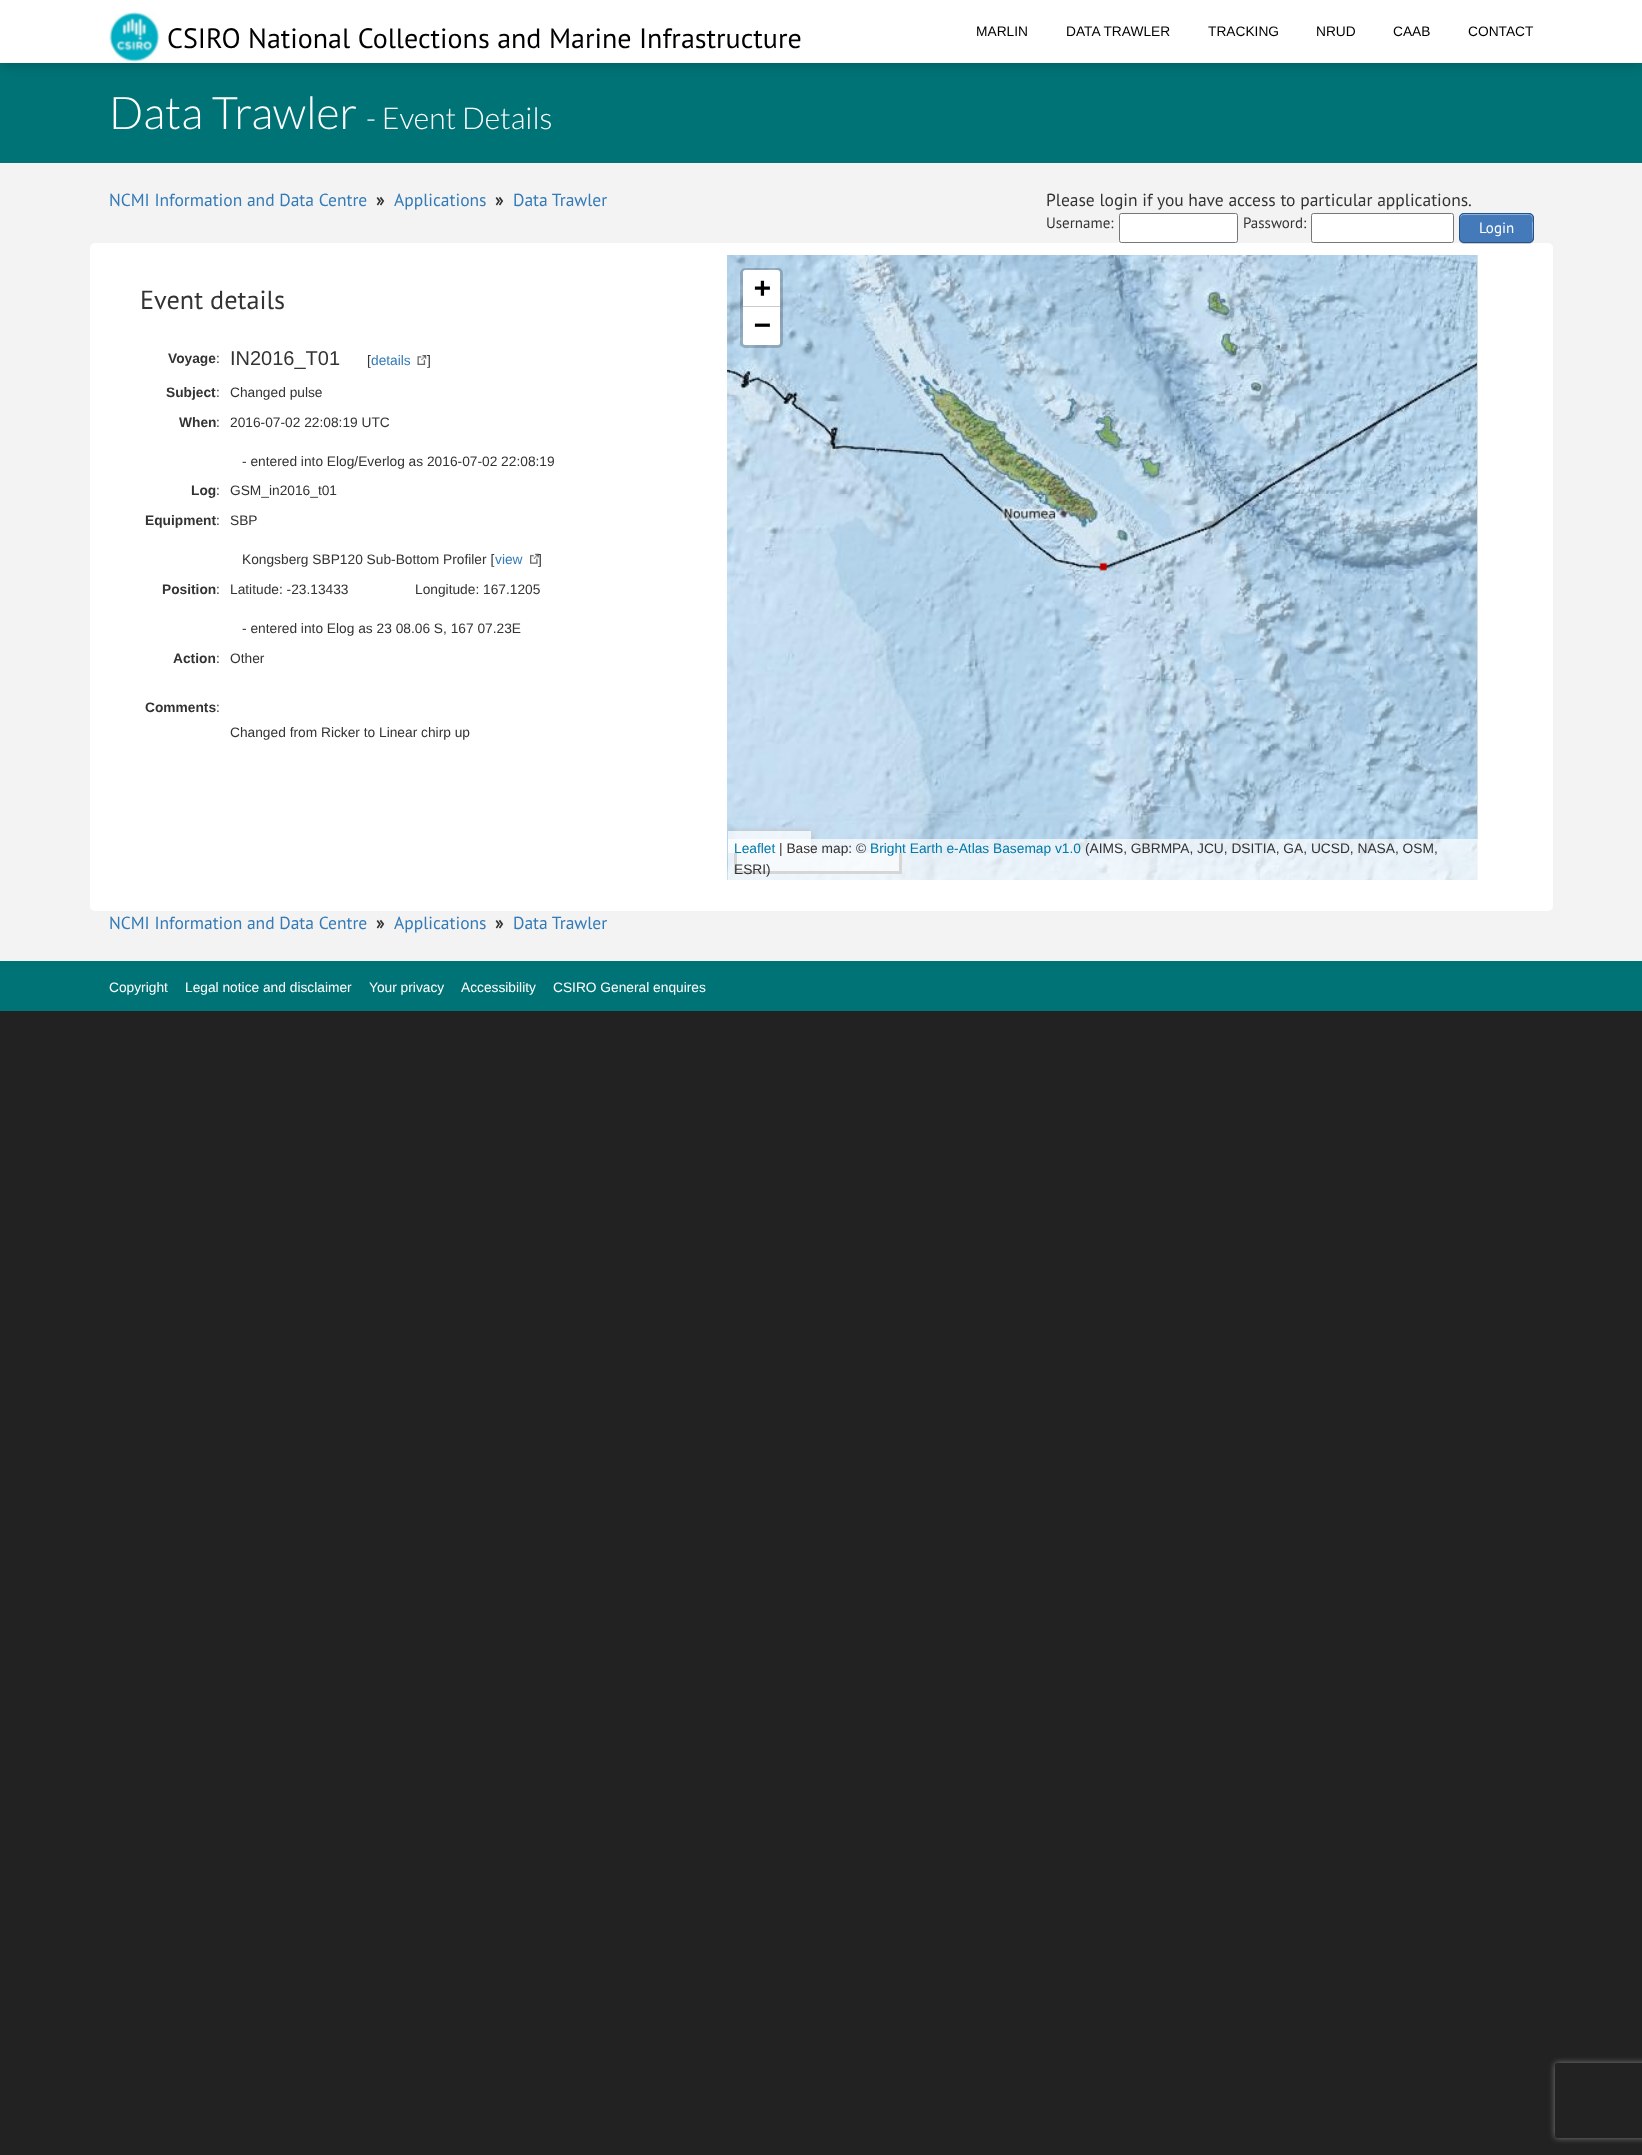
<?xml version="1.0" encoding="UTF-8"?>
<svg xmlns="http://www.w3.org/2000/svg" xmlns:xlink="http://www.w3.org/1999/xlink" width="1642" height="2155">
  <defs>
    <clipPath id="clip1"><path d="M 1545 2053 h 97 v 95 h -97 z m 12.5 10 h 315 c 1.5 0 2.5 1 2.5 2.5 v 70 c 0 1.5 -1 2.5 -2.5 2.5 h -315 c -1.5 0 -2.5 -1 -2.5 -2.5 v -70 c 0 -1.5 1 -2.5 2.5 -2.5 z" clip-rule="evenodd" /></clipPath>
    <clipPath id="clip2"><rect x="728" y="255" width="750" height="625" /></clipPath>
    <clipPath id="clip3"><path d="M 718 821 h 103 v 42 h -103 z m 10 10 h 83 v 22 h -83 z" clip-rule="evenodd" /></clipPath>
  </defs>
  <rect width="100%" height="100%" fill="#222222" />
  <rect y="163" width="1642" height="798" fill="#f3f3f3" />
  <rect y="63" width="1642" height="100" fill="#007377" />
  <rect y="3" width="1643" height="62" fill="#000000" fill-opacity="0.2" filter="blur(6px)" />
  <rect width="1642" height="63" fill="#ffffff" />
  <image x="109" y="12" width="51" height="50" xlink:href="image1.png" />
  <rect x="1119.5" y="213.5" width="118" height="29" rx="2" fill="#ffffff" stroke="#767676" />
  <rect x="1311.5" y="213.5" width="142" height="29" rx="2" fill="#ffffff" stroke="#767676" />
  <rect x="90" y="243" width="1463" height="668" rx="5" fill="#ffffff" />
  <rect x="1459" y="214" width="75" height="30" rx="5" fill="#000000" fill-opacity="0.2" filter="blur(0.5px)" />
  <rect x="1459" y="213" width="75" height="30" rx="5" fill="#4479ba" />
  <path d="M 1464 215 h 66 c 3 2 3 6 2 8 v 2 c 0 8 1 12 0 15 c 2 -3 1 -10 1 -12 c 0 -16 1 -14 -15 -14 h -43 c -2 0 -14 -2 -15 3 v 2 c 0 -2 2 -4 4 -4 z" fill="#8fafd6" />
  <rect x="1459.5" y="213.5" width="74" height="29" rx="4.5" fill="none" stroke="#20538d" />
  <g clip-path="url(#clip1)">
    <rect x="1555" y="2063" width="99" height="75" rx="2.5" fill="#808080" filter="blur(3px)" />
  </g>
  <image x="417" y="355" width="10" height="10" xlink:href="image2.png" />
  <image x="530" y="553" width="9" height="11" xlink:href="image3.png" />
  <rect x="875" y="255" width="603" height="625" fill="#dddddd" />
  <image x="727" y="255" width="148" height="239" xlink:href="image4.png" />
  <image x="875" y="255" width="320" height="239" xlink:href="image5.png" />
  <image x="1195" y="255" width="282" height="239" xlink:href="image6.png" />
  <image x="727" y="494" width="148" height="320" xlink:href="image7.png" />
  <image x="875" y="494" width="320" height="320" xlink:href="image8.png" />
  <image x="1195" y="494" width="282" height="320" xlink:href="image9.png" />
  <image x="727" y="813" width="148" height="67" xlink:href="image10.png" />
  <image x="875" y="813" width="320" height="67" xlink:href="image11.png" />
  <image x="1195" y="813" width="282" height="67" xlink:href="image12.png" />
  <image x="1099" y="562" width="9" height="9" xlink:href="image13.png" />
  <rect x="741.5" y="269.5" width="40" height="77" rx="3.5" fill="none" stroke="#000000" stroke-opacity="0.2" stroke-width="3" />
  <path d="M 745.5 270 h 32 c 1.5 0 2.5 1 2.5 2.5 v 35.5 h -37 v -35.5 c 0 -1.5 1 -2.5 2.5 -2.5 z" fill="#ffffff" />
  <rect x="743" y="306" width="37" height="1" fill="#cccccc" />
  <path d="M 743 308 h 37 v 34.5 c 0 1.5 -1 2.5 -2.5 2.5 h -32 c -1.5 0 -2.5 -1 -2.5 -2.5 z" fill="#ffffff" />
  <g clip-path="url(#clip2)">
    <g clip-path="url(#clip3)">
      <rect x="728" y="831" width="83" height="22" fill="#bbbbbb" filter="blur(3px)" />
    </g>
  </g>
  <rect x="728" y="831" width="83" height="22" fill="#ffffff" fill-opacity="0.7" />
  <rect x="737" y="853" width="162" height="18" fill="#ffffff" fill-opacity="0.5" />
  <rect x="899" y="853" width="3" height="21" fill="#777777" />
  <rect x="734" y="871" width="167" height="3" fill="#777777" />
  <rect x="734" y="853" width="3" height="21" fill="#777777" />
  <rect x="728" y="839" width="750" height="41" fill="#ffffff" fill-opacity="0.7" />
  <rect y="961" width="1642" height="50" fill="#007377" />
  <text x="167" y="48" style="font-family: PT Sans; font-size: 28px; fill: #000000">CSIRO National Collections and Marine Infrastructure</text>
  <text x="976" y="36" style="font-family: Liberation Sans; font-size: 13.75px; fill: #000000">MARLIN</text>
  <text x="1066" y="36" style="font-family: Liberation Sans; font-size: 13.75px; fill: #000000">DATA TRAWLER</text>
  <text x="1208" y="36" style="font-family: Liberation Sans; font-size: 13.75px; fill: #000000">TRACKING</text>
  <text x="1316" y="36" style="font-family: Liberation Sans; font-size: 13.75px; fill: #000000">NRUD</text>
  <text x="1393" y="36" style="font-family: Liberation Sans; font-size: 13.75px; fill: #000000">CAAB</text>
  <text x="1468" y="36" style="font-family: Liberation Sans; font-size: 13.75px; fill: #000000">CONTACT</text>
  <text x="109" y="129" style="font-family: Lato; font-size: 45px; font-weight: 300; fill: #ffffff">Data Trawler</text>
  <text x="366" y="129" style="font-family: Lato; font-size: 30px; font-weight: 300; fill: #ffffff">- Event Details</text>
  <text x="109" y="206" style="font-family: PT Sans; font-size: 17.5px; fill: #337ab7">NCMI Information and Data Centre</text>
  <text x="376" y="206" style="font-family: PT Sans; font-size: 17.5px; font-weight: bold; fill: #333333">»</text>
  <text x="394" y="206" style="font-family: PT Sans; font-size: 17.5px; fill: #337ab7">Applications</text>
  <text x="495" y="206" style="font-family: PT Sans; font-size: 17.5px; font-weight: bold; fill: #333333">»</text>
  <text x="513" y="206" style="font-family: PT Sans; font-size: 17.5px; fill: #337ab7">Data Trawler</text>
  <text x="1046" y="206" style="font-family: PT Sans; font-size: 17.5px; fill: #333333">Please login if you have access to particular applications.</text>
  <text x="1046" y="228" style="font-family: PT Sans; font-size: 15px; fill: #333333">Username:</text>
  <text x="1243" y="228" style="font-family: PT Sans; font-size: 15px; fill: #333333">Password:</text>
  <text x="1479" y="233" style="font-family: PT Sans; font-size: 15px; fill: #ffffff">Login</text>
  <text x="140" y="309" style="font-family: PT Sans; font-size: 26.25px; fill: #333333">Event details</text>
  <text x="168" y="363" style="font-family: Liberation Sans; font-size: 13.75px; font-weight: bold; fill: #333333">Voyage</text>
  <text x="216" y="363" style="font-family: Liberation Sans; font-size: 13.75px; fill: #333333">:</text>
  <text x="230" y="365" style="font-family: Liberation Sans; font-size: 20px; fill: #333333">IN2016_T01</text>
  <text x="367" y="365" style="font-family: Liberation Sans; font-size: 13.75px; fill: #333333">[</text>
  <text x="371" y="365" style="font-family: Liberation Sans; font-size: 13.75px; fill: #337ab7">details</text>
  <text x="427" y="365" style="font-family: Liberation Sans; font-size: 13.75px; fill: #333333">]</text>
  <text x="166" y="397" style="font-family: Liberation Sans; font-size: 13.75px; font-weight: bold; fill: #333333">Subject</text>
  <text x="216" y="397" style="font-family: Liberation Sans; font-size: 13.75px; fill: #333333">:</text>
  <text x="230" y="397" style="font-family: Liberation Sans; font-size: 13.75px; fill: #333333">Changed pulse</text>
  <text x="179" y="427" style="font-family: Liberation Sans; font-size: 13.75px; font-weight: bold; fill: #333333">When</text>
  <text x="216" y="427" style="font-family: Liberation Sans; font-size: 13.75px; fill: #333333">:</text>
  <text x="230" y="427" style="font-family: Liberation Sans; font-size: 13.75px; fill: #333333">2016-07-02 22:08:19 UTC</text>
  <text x="242" y="466" style="font-family: Liberation Sans; font-size: 13.75px; fill: #333333">- entered into Elog/Everlog as 2016-07-02 22:08:19</text>
  <text x="191" y="495" style="font-family: Liberation Sans; font-size: 13.75px; font-weight: bold; fill: #333333">Log</text>
  <text x="216" y="495" style="font-family: Liberation Sans; font-size: 13.75px; fill: #333333">:</text>
  <text x="230" y="495" style="font-family: Liberation Sans; font-size: 13.75px; fill: #333333">GSM_in2016_t01</text>
  <text x="145" y="525" style="font-family: Liberation Sans; font-size: 13.75px; font-weight: bold; fill: #333333">Equipment</text>
  <text x="216" y="525" style="font-family: Liberation Sans; font-size: 13.75px; fill: #333333">:</text>
  <text x="230" y="525" style="font-family: Liberation Sans; font-size: 13.75px; fill: #333333">SBP</text>
  <text x="242" y="564" style="font-family: Liberation Sans; font-size: 13.75px; fill: #333333">Kongsberg SBP120 Sub-Bottom Profiler [</text>
  <text x="495" y="564" style="font-family: Liberation Sans; font-size: 13.75px; fill: #337ab7">view</text>
  <text x="538" y="564" style="font-family: Liberation Sans; font-size: 13.75px; fill: #333333">]</text>
  <text x="162" y="594" style="font-family: Liberation Sans; font-size: 13.75px; font-weight: bold; fill: #333333">Position</text>
  <text x="216" y="594" style="font-family: Liberation Sans; font-size: 13.75px; fill: #333333">:</text>
  <text x="230" y="594" style="font-family: Liberation Sans; font-size: 13.75px; fill: #333333">Latitude: -23.13433</text>
  <text x="415" y="594" style="font-family: Liberation Sans; font-size: 13.75px; fill: #333333">Longitude: 167.1205</text>
  <text x="242" y="633" style="font-family: Liberation Sans; font-size: 13.75px; fill: #333333">- entered into Elog as 23 08.06 S, 167 07.23E</text>
  <text x="173" y="663" style="font-family: Liberation Sans; font-size: 13.75px; font-weight: bold; fill: #333333">Action</text>
  <text x="216" y="663" style="font-family: Liberation Sans; font-size: 13.75px; fill: #333333">:</text>
  <text x="230" y="663" style="font-family: Liberation Sans; font-size: 13.75px; fill: #333333">Other</text>
  <text x="145" y="712" style="font-family: Liberation Sans; font-size: 13.75px; font-weight: bold; fill: #333333">Comments</text>
  <text x="216" y="712" style="font-family: Liberation Sans; font-size: 13.75px; fill: #333333">:</text>
  <text x="230" y="737" style="font-family: Liberation Sans; font-size: 13.75px; fill: #333333">Changed from Ricker to Linear chirp up</text>
  <text x="754" y="297" style="font-family: DejaVu Sans Mono; font-size: 28px; font-weight: bold; fill: #000000">+</text>
  <text x="754" y="334" style="font-family: DejaVu Sans Mono; font-size: 28px; font-weight: bold; fill: #000000">−</text>
  <text x="734" y="853" style="font-family: Liberation Sans; font-size: 13.75px; fill: #0078a8">Leaflet</text>
  <text x="779" y="853" style="font-family: Liberation Sans; font-size: 13.75px; fill: #333333">| Base map: ©</text>
  <text x="870" y="853" style="font-family: Liberation Sans; font-size: 13.75px; fill: #0078a8">Bright Earth e-Atlas Basemap v1.0</text>
  <text x="1085" y="853" style="font-family: Liberation Sans; font-size: 13.75px; fill: #333333">(AIMS, GBRMPA, JCU, DSITIA, GA, UCSD, NASA, OSM,</text>
  <text x="734" y="874" style="font-family: Liberation Sans; font-size: 13.75px; fill: #333333">ESRI)</text>
  <text x="109" y="929" style="font-family: PT Sans; font-size: 17.5px; fill: #337ab7">NCMI Information and Data Centre</text>
  <text x="376" y="929" style="font-family: PT Sans; font-size: 17.5px; font-weight: bold; fill: #333333">»</text>
  <text x="394" y="929" style="font-family: PT Sans; font-size: 17.5px; fill: #337ab7">Applications</text>
  <text x="495" y="929" style="font-family: PT Sans; font-size: 17.5px; font-weight: bold; fill: #333333">»</text>
  <text x="513" y="929" style="font-family: PT Sans; font-size: 17.5px; fill: #337ab7">Data Trawler</text>
  <text x="109" y="992" style="font-family: Liberation Sans; font-size: 13.75px; fill: #ffffff">Copyright</text>
  <text x="185" y="992" style="font-family: Liberation Sans; font-size: 13.75px; fill: #ffffff">Legal notice and disclaimer</text>
  <text x="369" y="992" style="font-family: Liberation Sans; font-size: 13.75px; fill: #ffffff">Your privacy</text>
  <text x="461" y="992" style="font-family: Liberation Sans; font-size: 13.75px; fill: #ffffff">Accessibility</text>
  <text x="553" y="992" style="font-family: Liberation Sans; font-size: 13.75px; fill: #ffffff">CSIRO General enquires</text>
</svg>
